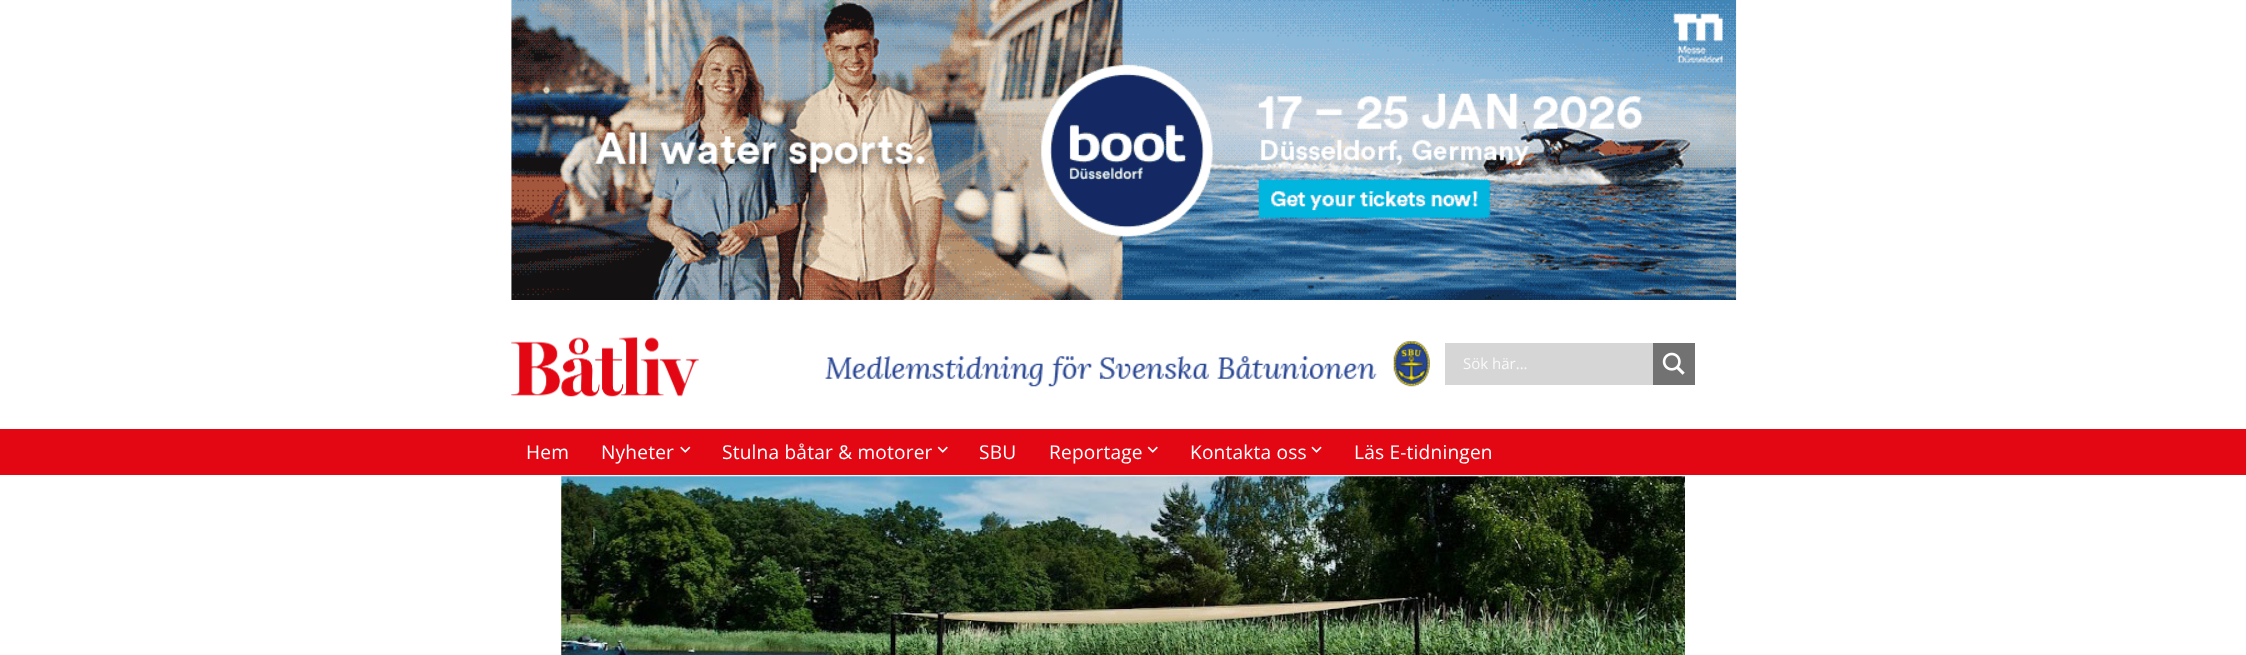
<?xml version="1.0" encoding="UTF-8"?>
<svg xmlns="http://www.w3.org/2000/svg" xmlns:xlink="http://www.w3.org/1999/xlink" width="2246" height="655">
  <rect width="100%" height="100%" fill="#ffffff" />
  <image x="511" y="0" width="1226" height="300" xlink:href="image1.png" />
  <image x="511" y="337" width="188" height="60" xlink:href="image2.png" />
  <image x="825" y="341" width="605" height="46" xlink:href="image3.png" />
  <rect x="1445" y="343" width="208" height="42" fill="#d6d6d6" />
  <rect x="1653" y="343" width="42" height="42" fill="#727272" />
  <image x="1662" y="352" width="23" height="23" xlink:href="image4.png" />
  <rect y="429" width="2246" height="46" fill="#e30714" />
  <image x="680" y="446" width="11" height="7" xlink:href="image5.png" />
  <image x="937" y="446" width="11" height="7" xlink:href="image6.png" />
  <image x="1147" y="446" width="11" height="7" xlink:href="image6.png" />
  <image x="1311" y="446" width="11" height="7" xlink:href="image7.png" />
  <image x="561" y="476" width="1124" height="179" xlink:href="image8.png" />
  <text x="1463" y="369" style="font-family: Open Sans; font-size: 15px; fill: #f9f9f9">Sök här...</text>
  <text x="526" y="459" style="font-family: Open Sans; font-size: 19.1px; letter-spacing: 0.2px; fill: #ffffff">Hem</text>
  <text x="601" y="459" style="font-family: Open Sans; font-size: 19.1px; letter-spacing: 0.2px; fill: #ffffff">Nyheter</text>
  <text x="722" y="459" style="font-family: Open Sans; font-size: 19.1px; letter-spacing: 0.2px; fill: #ffffff">Stulna båtar &amp; motorer</text>
  <text x="979" y="459" style="font-family: Open Sans; font-size: 19.1px; letter-spacing: 0.2px; fill: #ffffff">SBU</text>
  <text x="1049" y="459" style="font-family: Open Sans; font-size: 19.1px; letter-spacing: 0.2px; fill: #ffffff">Reportage</text>
  <text x="1190" y="459" style="font-family: Open Sans; font-size: 19.1px; letter-spacing: 0.2px; fill: #ffffff">Kontakta oss</text>
  <text x="1354" y="459" style="font-family: Open Sans; font-size: 19.1px; letter-spacing: 0.2px; fill: #ffffff">Läs E-tidningen</text>
</svg>
